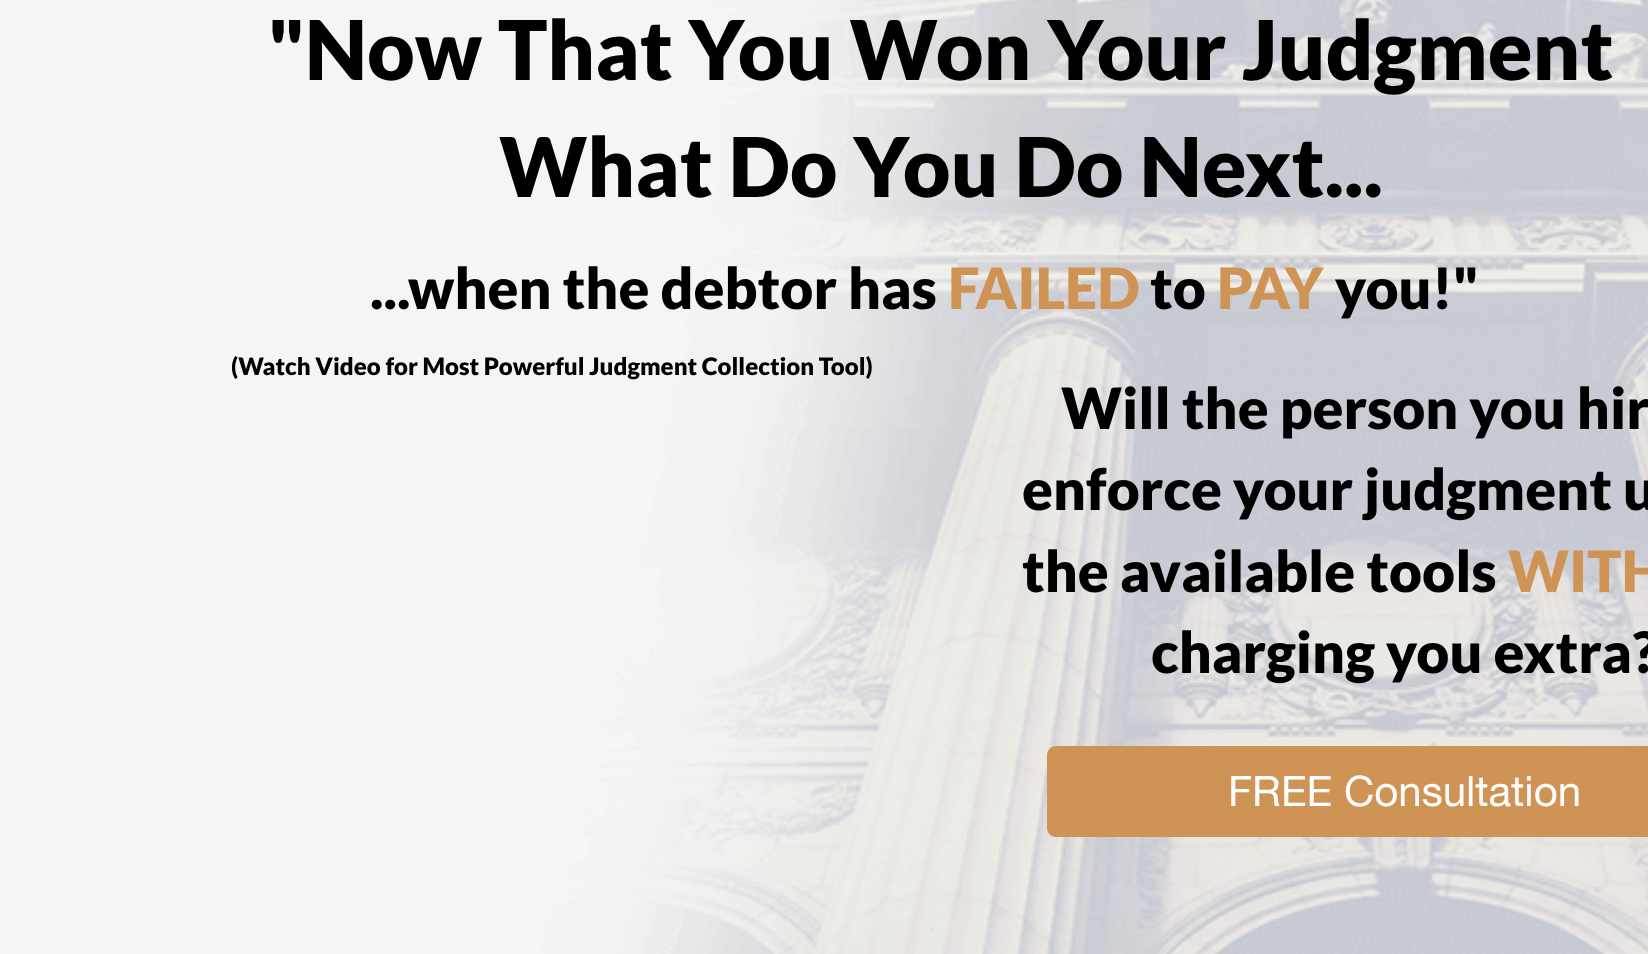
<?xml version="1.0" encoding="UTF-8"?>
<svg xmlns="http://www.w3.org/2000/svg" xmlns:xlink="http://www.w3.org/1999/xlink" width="1648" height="954">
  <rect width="100%" height="100%" fill="#ffffff" />
  <image x="0" y="0" width="1648" height="954" xlink:href="image1.png" />
  <path d="M 1056 746 h 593 v 91 h -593 c -5 0 -9 -4 -9 -9 v -73 c 0 -5 4 -9 9 -9 z" fill="#cf9455" />
  <text x="268" y="80" style="font-family: Lato; font-size: 82.5px; font-weight: 900; fill: #000000">"Now That You Won Your Judgment</text>
  <text x="499" y="197" style="font-family: Lato; font-size: 82.5px; font-weight: 900; fill: #000000">What Do You Do Next...</text>
  <text x="370" y="309" style="font-family: Lato; font-size: 57px; font-weight: 900; fill: #000000">...when the debtor has</text>
  <text x="948" y="309" style="font-family: Lato; font-size: 57px; font-weight: 900; fill: #cf9455">FAILED</text>
  <text x="1150" y="309" style="font-family: Lato; font-size: 57px; font-weight: 900; fill: #000000">to</text>
  <text x="1217" y="309" style="font-family: Lato; font-size: 57px; font-weight: 900; fill: #cf9455">PAY</text>
  <text x="1335" y="309" style="font-family: Lato; font-size: 57px; font-weight: 900; fill: #000000">you!"</text>
  <text x="231" y="375" style="font-family: Lato; font-size: 24px; font-weight: 900; fill: #000000">(Watch Video for Most Powerful Judgment Collection Tool)</text>
  <text x="1061" y="429" style="font-family: Lato; font-size: 57px; font-weight: 900; fill: #000000">Will the person you hir</text>
  <text x="1022" y="510" style="font-family: Lato; font-size: 57px; font-weight: 900; fill: #000000">enforce your judgment u</text>
  <text x="1022" y="592" style="font-family: Lato; font-size: 57px; font-weight: 900; fill: #000000">the available tools</text>
  <text x="1508" y="592" style="font-family: Lato; font-size: 57px; font-weight: 900; fill: #cf9455">WITH</text>
  <text x="1151" y="673" style="font-family: Lato; font-size: 57px; font-weight: 900; fill: #000000">charging you extra?</text>
  <text x="1228" y="806" style="font-family: Helvetica Neue; font-size: 42px; fill: #ffffff">FREE Consultation</text>
</svg>
